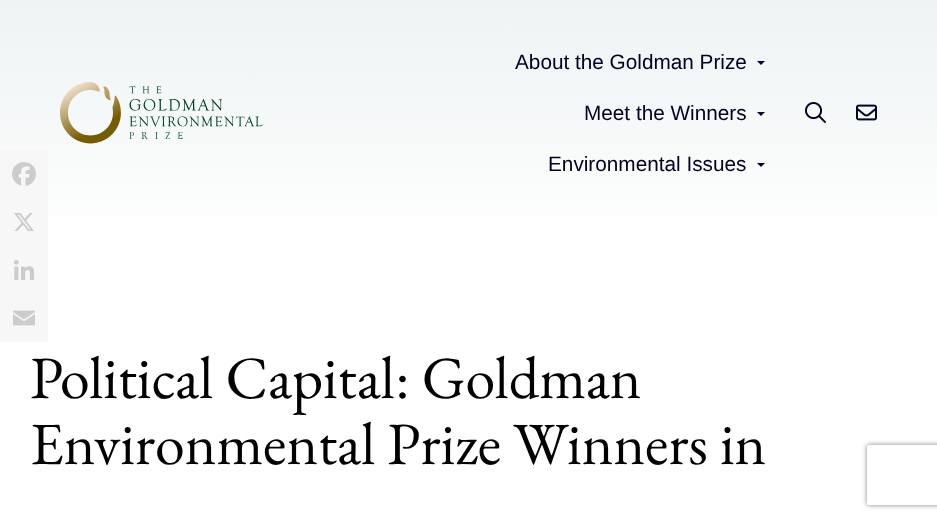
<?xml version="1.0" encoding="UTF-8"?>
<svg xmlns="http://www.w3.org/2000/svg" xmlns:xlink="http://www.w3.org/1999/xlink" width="937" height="519">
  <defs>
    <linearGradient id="g1" gradientUnits="userSpaceOnUse" x1="469" y1="0" x2="469" y2="254"><stop offset="0" stop-color="#eef3f3" /><stop offset="1" stop-color="#ffffff" /></linearGradient>
    <clipPath id="clip1"><path d="M 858 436 h 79 v 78 h -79 z m 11 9 h 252 c 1 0 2 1 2 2 v 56 c 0 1 -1 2 -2 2 h -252 c -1 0 -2 -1 -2 -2 v -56 c 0 -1 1 -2 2 -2 z" clip-rule="evenodd" /></clipPath>
  </defs>
  <rect width="100%" height="100%" fill="#ffffff" />
  <rect width="937" height="217" fill="url(#g1)" />
  <rect y="150" width="48" height="192" fill="#f7f7f7" />
  <image x="12" y="162" width="24" height="24" xlink:href="image1.png" />
  <image x="14" y="213" width="20" height="18" xlink:href="image2.png" />
  <image x="14" y="260" width="21" height="20" xlink:href="image3.png" />
  <image x="13" y="310" width="22" height="16" xlink:href="image4.png" />
  <image x="60" y="82" width="203" height="62" xlink:href="image5.png" />
  <path d="M 757 61 h 8 l -4 4 z" fill="#000022" />
  <path d="M 757 112 h 8 l -4 4 z" fill="#000022" />
  <path d="M 757 163 h 8 l -4 4 z" fill="#000022" />
  <image x="805" y="102" width="21" height="21" xlink:href="image6.png" />
  <image x="856" y="104" width="21" height="17" xlink:href="image7.png" />
  <g clip-path="url(#clip1)">
    <rect x="867" y="445" width="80" height="60" rx="2" fill="#808080" filter="blur(2.5px)" />
  </g>
  <text x="515" y="69" style="font-family: Arimo; font-size: 20.75px; fill: #000022">About the Goldman Prize</text>
  <text x="584" y="120" style="font-family: Arimo; font-size: 20.75px; fill: #000022">Meet the Winners</text>
  <text x="548" y="171" style="font-family: Arimo; font-size: 20.75px; fill: #000022">Environmental Issues</text>
  <text x="30" y="398" style="font-family: EB Garamond; font-size: 60px; fill: #000000">Political Capital: Goldman</text>
  <text x="30" y="464" style="font-family: EB Garamond; font-size: 60px; fill: #000000">Environmental Prize Winners in</text>
</svg>
